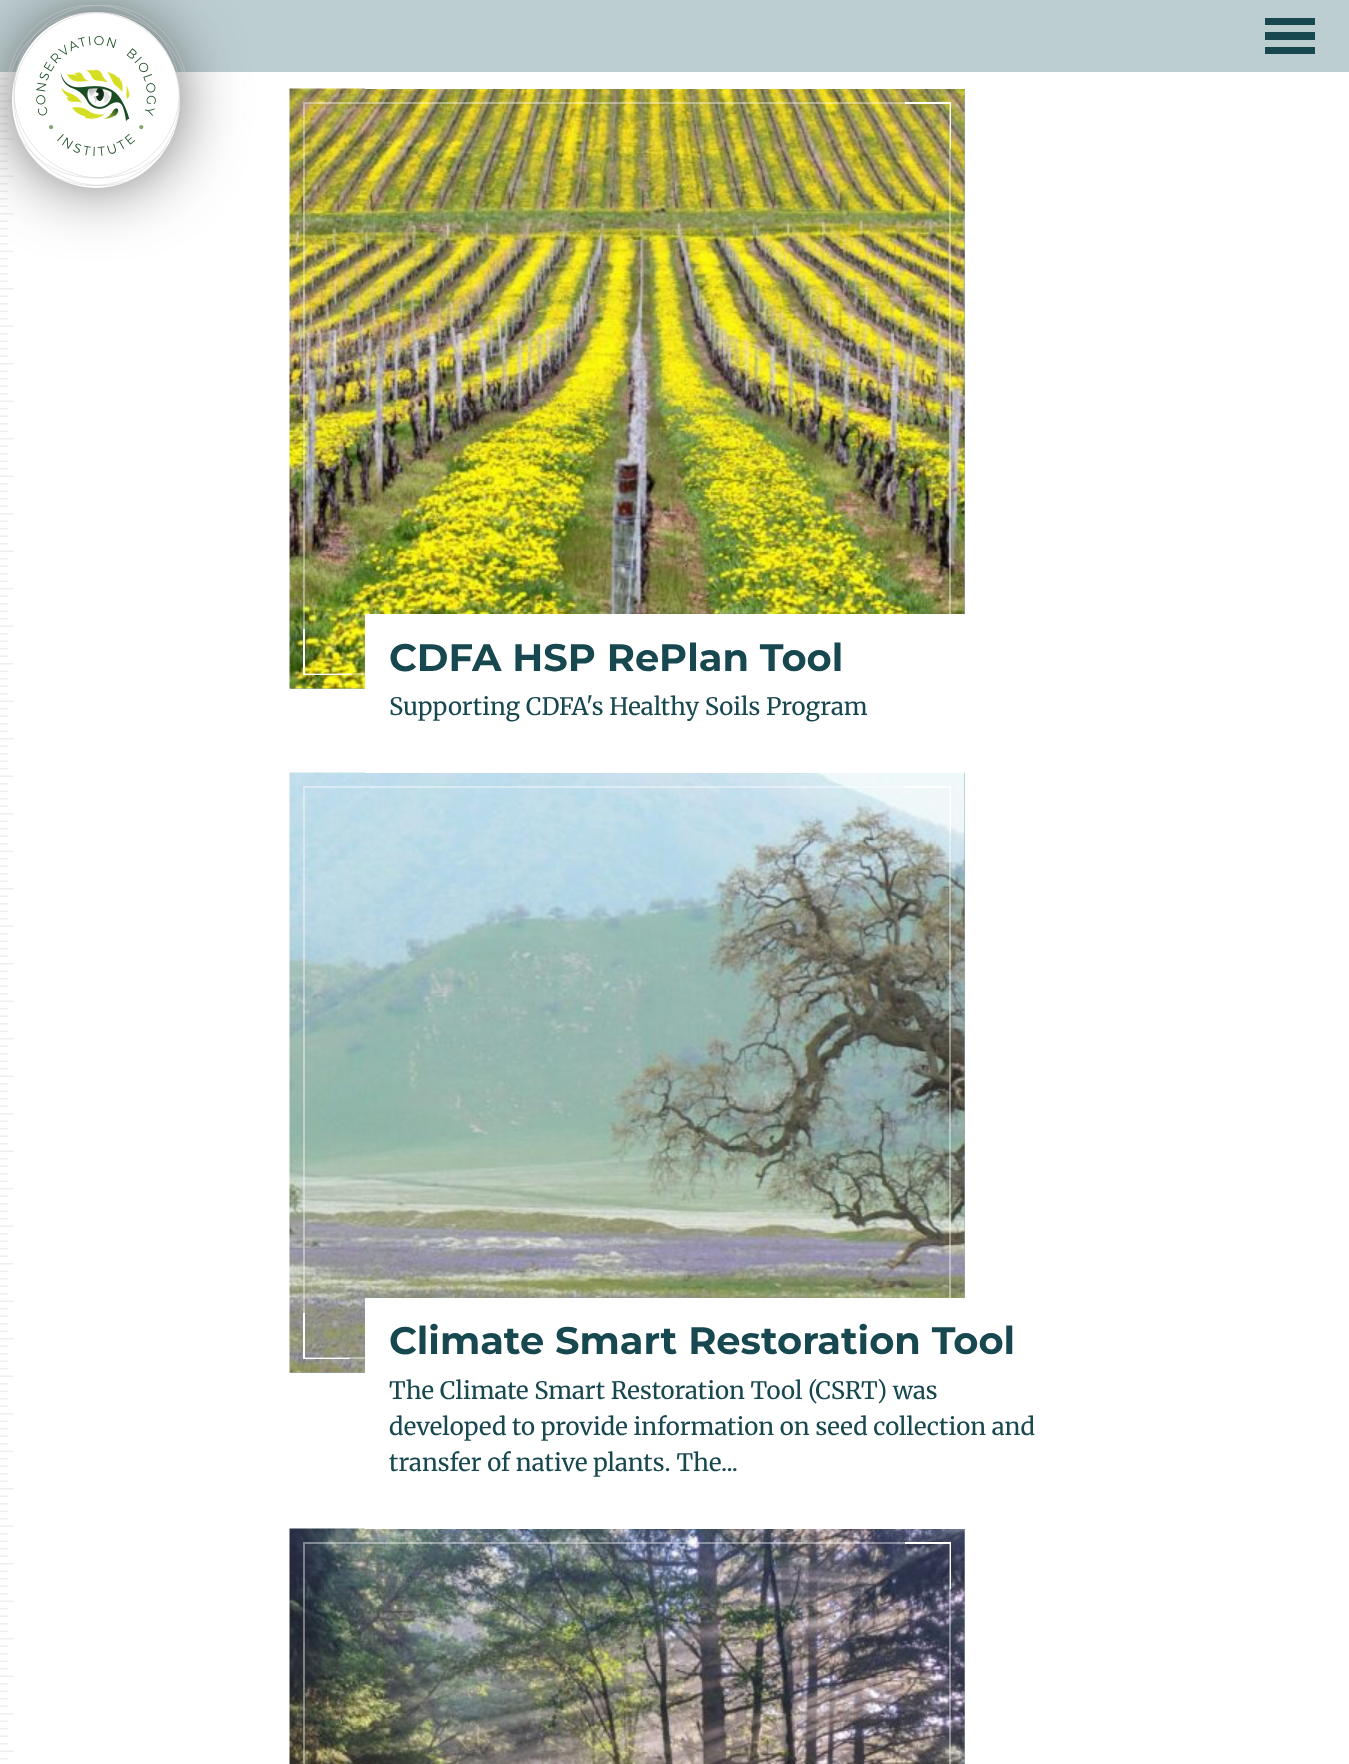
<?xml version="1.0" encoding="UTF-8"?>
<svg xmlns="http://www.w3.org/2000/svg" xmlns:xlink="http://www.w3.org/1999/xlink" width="1349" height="1764">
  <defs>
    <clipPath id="clip1"><rect x="6" y="5" width="180" height="181" /></clipPath>
  </defs>
  <rect width="100%" height="100%" fill="#ffffff" />
  <rect width="1349" height="72" fill="#bdced1" />
  <image x="0" y="78" width="14" height="1682" xlink:href="image2.png" />
  <rect x="24" y="24" width="144" height="152" rx="72" fill="#333333" filter="blur(37.5px)" />
  <ellipse cx="96" cy="100" rx="84" ry="88" fill="#ffffff" />
  <image x="36" y="36" width="120" height="120" xlink:href="image1.png" />
  <g clip-path="url(#clip1)">
    <circle cx="100.5" cy="91.5" r="86.5" fill="none" stroke="#cccccc" stroke-width="0.5" />
    <circle cx="100.5" cy="99" r="86.5" fill="none" stroke="#cccccc" stroke-width="0.5" />
    <circle cx="93" cy="91.5" r="86.5" fill="none" stroke="#cccccc" stroke-width="0.5" />
  </g>
  <circle cx="93" cy="99" r="86.5" fill="none" stroke="#cccccc" stroke-width="0.5" />
  <path d="M 1265 54 h 50 v -7 h -50 z m 0 -36 v 7 h 50 v -7 z m 0 22 h 50 v -8 h -50 z" fill="#18484f" />
  <rect x="290" y="89" width="675" height="600" fill="#91acb1" />
  <image x="289" y="88" width="676" height="601" xlink:href="image3.png" />
  <rect x="365" y="88" width="600" height="1" fill="#ffffff" />
  <rect x="303" y="629" width="2" height="46" fill="#ffffff" />
  <rect x="303" y="674" width="47" height="1" fill="#ffffff" />
  <rect x="950" y="102" width="1" height="47" fill="#ffffff" />
  <rect x="905" y="102" width="46" height="2" fill="#ffffff" />
  <rect x="304" y="103" width="646" height="571" fill="none" stroke="#ffffff" stroke-opacity="0.4" stroke-width="2" />
  <rect x="290" y="773" width="675" height="600" fill="#91acb1" />
  <image x="289" y="772" width="676" height="601" xlink:href="image4.png" />
  <rect x="365" y="614" width="600" height="159" fill="#ffffff" />
  <rect x="303" y="1313" width="2" height="46" fill="#ffffff" />
  <rect x="303" y="1358" width="47" height="1" fill="#ffffff" />
  <rect x="950" y="786" width="1" height="47" fill="#ffffff" />
  <rect x="905" y="786" width="46" height="2" fill="#ffffff" />
  <rect x="304" y="787" width="646" height="571" fill="none" stroke="#ffffff" stroke-opacity="0.4" stroke-width="2" />
  <rect x="964" y="1529" width="1" height="235" fill="#91acb1" />
  <image x="289" y="1528" width="676" height="236" xlink:href="image5.png" />
  <rect x="365" y="1298" width="600" height="231" fill="#ffffff" />
  <rect x="950" y="1542" width="1" height="47" fill="#ffffff" />
  <rect x="905" y="1542" width="46" height="2" fill="#ffffff" />
  <rect x="304" y="1543" width="646" height="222" fill="none" stroke="#ffffff" stroke-opacity="0.4" stroke-width="2" />
  <text x="389" y="671" style="font-family: Montserrat; font-size: 38.4px; font-weight: bold; fill: #18484f">CDFA HSP RePlan Tool</text>
  <text x="389" y="715" style="font-family: Merriweather; font-size: 24px; fill: #18484f">Supporting CDFA's Healthy Soils Program</text>
  <text x="389" y="1354" style="font-family: Montserrat; font-size: 38.4px; font-weight: bold; fill: #18484f">Climate Smart Restoration Tool</text>
  <text x="389" y="1399" style="font-family: Merriweather; font-size: 24px; fill: #18484f">The Climate Smart Restoration Tool (CSRT) was</text>
  <text x="389" y="1435" style="font-family: Merriweather; font-size: 24px; fill: #18484f">developed to provide information on seed collection and</text>
  <text x="389" y="1471" style="font-family: Merriweather; font-size: 24px; fill: #18484f">transfer of native plants. The...</text>
</svg>
